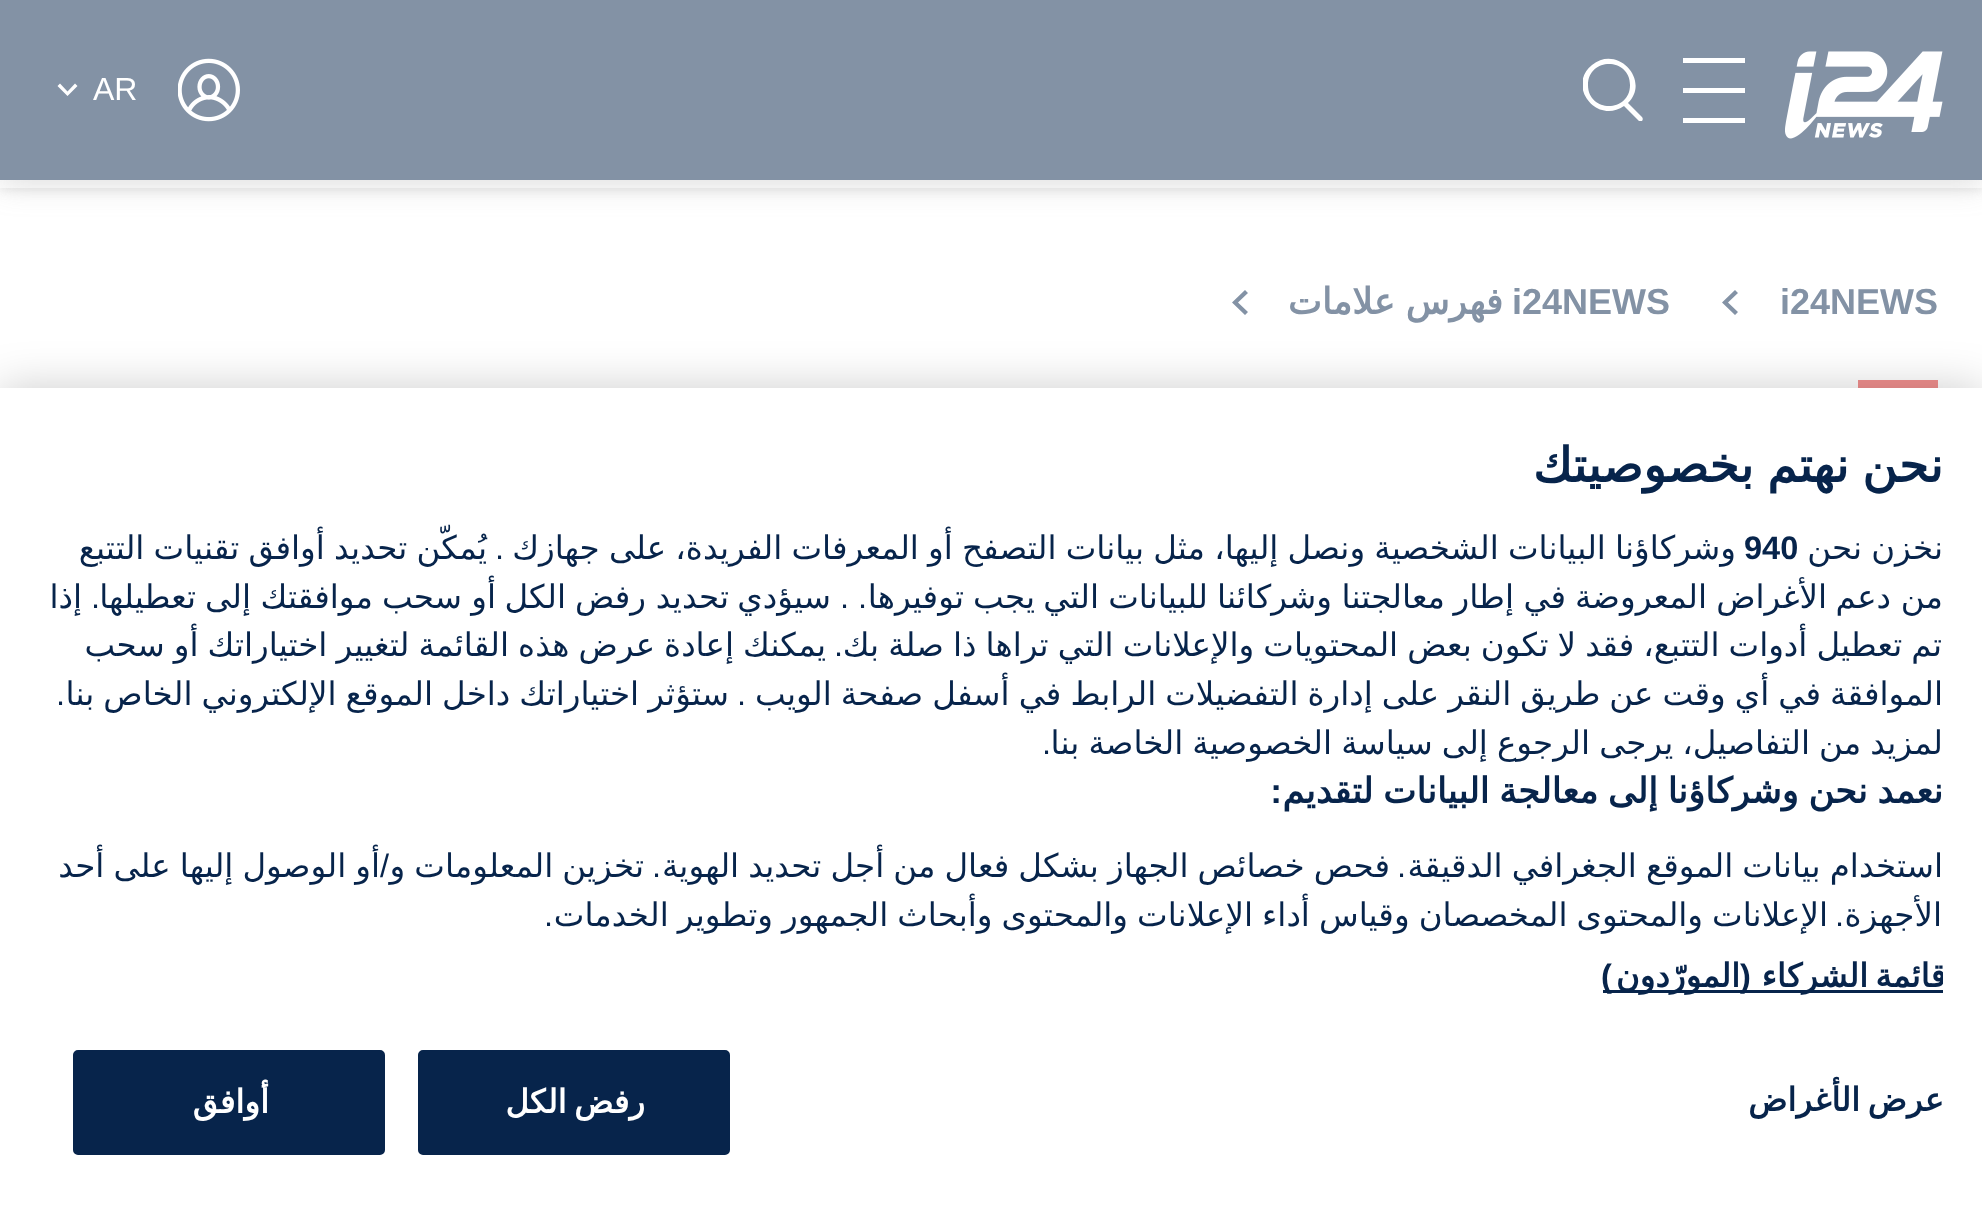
<?xml version="1.0" encoding="UTF-8"?>
<svg xmlns="http://www.w3.org/2000/svg" xmlns:xlink="http://www.w3.org/1999/xlink" width="1982" height="1209">
  <defs>
    <clipPath id="clip1"><rect x="1583" y="58" width="60" height="65" /></clipPath>
    <clipPath id="clip2"><rect x="40" y="438" width="1903" height="587" /></clipPath>
  </defs>
  <rect width="100%" height="100%" fill="#ffffff" />
  <rect y="180" width="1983" height="8" fill="#808080" fill-opacity="0.25" filter="blur(6px)" />
  <rect y="180" width="1982" height="8" fill="#ffffff" />
  <rect y="5" width="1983" height="180" fill="#808080" fill-opacity="0.25" filter="blur(15px)" />
  <rect width="1982" height="180" fill="#8392a5" />
  <image x="1785" y="51" width="158" height="88" xlink:href="image1.png" />
  <rect x="1683" y="58" width="62" height="5" fill="#ffffff" />
  <rect x="1683" y="88" width="62" height="5" fill="#ffffff" />
  <rect x="1683" y="118" width="62" height="5" fill="#ffffff" />
  <g clip-path="url(#clip1)">
    <path d="M 1642 117 l -14 -14 c 23 -23 -11 -59 -36 -38 c -26 21 5 60 32 41 l 15 15 c 1 0 2 0 3 0 c 1 -1 1 -3 0 -4 z m -54 -32 c 0 -28 42 -28 42 0 c 0 28 -42 28 -42 0 z" fill="#ffffff" />
  </g>
  <image x="178" y="58" width="62" height="64" xlink:href="image2.png" />
  <path d="M 75 83.5 l -7.5 8 l -7.5 -8 l -2.5 2.5 l 10 10 l 10 -10 z" fill="#ffffff" />
  <path d="M 1738 312 l -10 -9.5 l 10 -9.5 l -3 -3 l -13 12.5 l 13 12.5 z" fill="#8392a5" />
  <path d="M 1248 312 l -10 -9.5 l 10 -9.5 l -3 -3 l -13 12.5 l 13 12.5 z" fill="#8392a5" />
  <rect x="1858" y="380" width="80" height="8" fill="#f08f8e" />
  <rect y="388" width="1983" height="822" fill="#000000" fill-opacity="0.2" filter="blur(22.5px)" />
  <rect y="388" width="1982" height="821" fill="#ffffff" />
  <rect x="1603" y="990" width="340" height="3" fill="#07244b" />
  <rect x="419.5" y="1051.5" width="309" height="102" rx="3.5" fill="#07244b" stroke="#07244b" stroke-width="3" />
  <rect x="74.5" y="1051.5" width="309" height="102" rx="3.5" fill="#07244b" stroke="#07244b" stroke-width="3" />
  <text x="93" y="100" style="font-family: Liberation Sans; font-size: 32px; fill: #ffffff">AR</text>
  <text x="1780" y="314" style="font-family: Liberation Sans; font-size: 36px; font-weight: bold; fill: #8392a5">i24NEWS</text>
  <text x="1512" y="314" style="font-family: Liberation Sans; font-size: 36px; font-weight: bold; fill: #8392a5">i24NEWS</text>
  <text x="1503" y="314" word-spacing="-1" style="font-family: DejaVu Sans; font-size: 36px; font-weight: bold; direction: rtl; fill: #8392a5">فهرس علامات</text>
  <text x="1943" y="482" word-spacing="-2" style="font-family: DejaVu Sans; font-size: 48px; font-weight: bold; direction: rtl; fill: #07244b">نحن نهتم بخصوصيتك</text>
  <text x="1943" y="559" word-spacing="-1.25" style="font-family: DejaVu Sans; font-size: 32.5px; direction: rtl; fill: #07244b">نخزن نحن</text>
  <text x="1744" y="559" style="font-family: Liberation Sans; font-size: 32.5px; font-weight: bold; fill: #07244b">940</text>
  <text x="1736" y="559" word-spacing="-1.1" style="font-family: DejaVu Sans; font-size: 32.5px; direction: rtl; fill: #07244b">وشركاؤنا البيانات الشخصية ونصل إليها، مثل بيانات التصفح أو المعرفات الفريدة، على جهازك</text>
  <text x="504" y="559" style="font-family: Liberation Sans; font-size: 32.5px; direction: rtl; fill: #07244b">.</text>
  <text x="487" y="559" word-spacing="-1.1" style="font-family: DejaVu Sans; font-size: 32.5px; direction: rtl; fill: #07244b">يُمكّن تحديد أوافق تقنيات التتبع</text>
  <text x="1943" y="608" style="font-family: DejaVu Sans; font-size: 32.5px; direction: rtl; fill: #07244b">من</text>
  <text x="1891" y="608" style="font-family: DejaVu Sans; font-size: 32.5px; direction: rtl; fill: #07244b">دعم</text>
  <text x="1827" y="608" style="font-family: DejaVu Sans; font-size: 32.5px; direction: rtl; fill: #07244b">الأغراض</text>
  <text x="1707" y="608" style="font-family: DejaVu Sans; font-size: 32.5px; direction: rtl; fill: #07244b">المعروضة</text>
  <text x="1566" y="608" style="font-family: DejaVu Sans; font-size: 32.5px; direction: rtl; fill: #07244b">في</text>
  <text x="1514" y="608" style="font-family: DejaVu Sans; font-size: 32.5px; direction: rtl; fill: #07244b">إطار</text>
  <text x="1445" y="608" style="font-family: DejaVu Sans; font-size: 32.5px; direction: rtl; fill: #07244b">معالجتنا</text>
  <text x="1332" y="608" style="font-family: DejaVu Sans; font-size: 32.5px; direction: rtl; fill: #07244b">وشركائنا</text>
  <text x="1208" y="608" style="font-family: DejaVu Sans; font-size: 32.5px; direction: rtl; fill: #07244b">للبيانات</text>
  <text x="1099" y="608" style="font-family: DejaVu Sans; font-size: 32.5px; direction: rtl; fill: #07244b">التي</text>
  <text x="1035" y="608" style="font-family: DejaVu Sans; font-size: 32.5px; direction: rtl; fill: #07244b">يجب</text>
  <text x="964" y="608" style="font-family: DejaVu Sans; font-size: 32.5px; direction: rtl; fill: #07244b">توفيرها</text>
  <text x="867" y="608" style="font-family: Liberation Sans; font-size: 32.5px; direction: rtl; fill: #07244b">. .</text>
  <text x="831" y="608" style="font-family: DejaVu Sans; font-size: 32.5px; direction: rtl; fill: #07244b">سيؤدي</text>
  <text x="729" y="608" style="font-family: DejaVu Sans; font-size: 32.5px; direction: rtl; fill: #07244b">تحديد</text>
  <text x="646" y="608" style="font-family: DejaVu Sans; font-size: 32.5px; direction: rtl; fill: #07244b">رفض</text>
  <text x="566" y="608" style="font-family: DejaVu Sans; font-size: 32.5px; direction: rtl; fill: #07244b">الكل</text>
  <text x="496" y="608" style="font-family: DejaVu Sans; font-size: 32.5px; direction: rtl; fill: #07244b">أو</text>
  <text x="462" y="608" style="font-family: DejaVu Sans; font-size: 32.5px; direction: rtl; fill: #07244b">سحب</text>
  <text x="373" y="608" style="font-family: DejaVu Sans; font-size: 32.5px; direction: rtl; fill: #07244b">موافقتك</text>
  <text x="251" y="608" style="font-family: DejaVu Sans; font-size: 32.5px; direction: rtl; fill: #07244b">إلى</text>
  <text x="196" y="608" style="font-family: DejaVu Sans; font-size: 32.5px; direction: rtl; fill: #07244b">تعطيلها</text>
  <text x="100" y="608" style="font-family: Liberation Sans; font-size: 32.5px; direction: rtl; fill: #07244b">.</text>
  <text x="82" y="608" style="font-family: DejaVu Sans; font-size: 32.5px; direction: rtl; fill: #07244b">إذا</text>
  <g clip-path="url(#clip2)">
    <text x="1942" y="656" word-spacing="-1.25" style="font-family: DejaVu Sans; font-size: 32.5px; direction: rtl; fill: #07244b">تم تعطيل أدوات التتبع، فقد لا تكون بعض المحتويات والإعلانات التي تراها ذا صلة بك</text>
  </g>
  <text x="843" y="656" style="font-family: Liberation Sans; font-size: 32.5px; direction: rtl; fill: #07244b">.</text>
  <text x="826" y="656" word-spacing="-1.25" style="font-family: DejaVu Sans; font-size: 32.5px; direction: rtl; fill: #07244b">يمكنك إعادة عرض هذه القائمة لتغيير اختياراتك أو سحب</text>
  <g clip-path="url(#clip2)">
    <text x="1943" y="705" word-spacing="-1.25" style="font-family: DejaVu Sans; font-size: 32.5px; direction: rtl; fill: #07244b">الموافقة في أي وقت عن طريق النقر على إدارة التفضيلات الرابط في أسفل صفحة الويب</text>
  </g>
  <text x="746" y="705" style="font-family: Liberation Sans; font-size: 32.5px; direction: rtl; fill: #07244b">.</text>
  <text x="729" y="705" word-spacing="-1.25" style="font-family: DejaVu Sans; font-size: 32.5px; direction: rtl; fill: #07244b">ستؤثر اختياراتك داخل الموقع الإلكتروني الخاص بنا</text>
  <text x="65" y="705" style="font-family: Liberation Sans; font-size: 32.5px; direction: rtl; fill: #07244b">.</text>
  <g clip-path="url(#clip2)">
    <text x="1943" y="754" word-spacing="-1.25" style="font-family: DejaVu Sans; font-size: 32.5px; direction: rtl; fill: #07244b">لمزيد من التفاصيل، يرجى الرجوع إلى سياسة الخصوصية الخاصة بنا</text>
  </g>
  <text x="1051" y="754" style="font-family: Liberation Sans; font-size: 32.5px; direction: rtl; fill: #07244b">.</text>
  <g clip-path="url(#clip2)">
    <text x="1943" y="803" word-spacing="-1.5" style="font-family: DejaVu Sans; font-size: 35.25px; font-weight: bold; direction: rtl; fill: #07244b">نعمد نحن وشركاؤنا إلى معالجة البيانات لتقديم</text>
  </g>
  <text x="1282" y="803" style="font-family: Liberation Sans; font-size: 35.25px; font-weight: bold; direction: rtl; fill: #07244b">:</text>
  <g clip-path="url(#clip2)">
    <text x="1943" y="877" word-spacing="-1.25" style="font-family: DejaVu Sans; font-size: 32.5px; direction: rtl; fill: #07244b">استخدام بيانات الموقع الجغرافي الدقيقة</text>
  </g>
  <text x="1406" y="877" style="font-family: Liberation Sans; font-size: 32.5px; direction: rtl; fill: #07244b">.</text>
  <text x="1390" y="877" word-spacing="-1.25" style="font-family: DejaVu Sans; font-size: 32.5px; direction: rtl; fill: #07244b">فحص خصائص الجهاز بشكل فعال من أجل تحديد الهوية</text>
  <text x="661" y="877" style="font-family: Liberation Sans; font-size: 32.5px; direction: rtl; fill: #07244b">.</text>
  <text x="380" y="877" word-spacing="-1.25" style="font-family: DejaVu Sans; font-size: 32.5px; direction: rtl; fill: #07244b">أو الوصول إليها على أحد</text>
  <text x="389" y="877" style="font-family: Liberation Sans; font-size: 32.5px; direction: rtl; fill: #07244b">/</text>
  <text x="644" y="877" word-spacing="-1.25" style="font-family: DejaVu Sans; font-size: 32.5px; direction: rtl; fill: #07244b">تخزين المعلومات و</text>
  <text x="1942" y="926" style="font-family: DejaVu Sans; font-size: 32.5px; direction: rtl; fill: #07244b">الأجهزة</text>
  <text x="1844" y="926" style="font-family: Liberation Sans; font-size: 32.5px; direction: rtl; fill: #07244b">.</text>
  <text x="1828" y="926" word-spacing="-1.25" style="font-family: DejaVu Sans; font-size: 32.5px; direction: rtl; fill: #07244b">الإعلانات والمحتوى المخصصان وقياس أداء الإعلانات والمحتوى وأبحاث الجمهور وتطوير الخدمات</text>
  <text x="553" y="926" style="font-family: Liberation Sans; font-size: 32.5px; direction: rtl; fill: #07244b">.</text>
  <g clip-path="url(#clip2)">
    <text x="1946" y="987" word-spacing="-3" style="font-family: DejaVu Sans; font-size: 32.5px; font-weight: bold; letter-spacing: 0.3px; direction: rtl; fill: #07244b">قائمة الشركاء</text>
  </g>
  <text x="1751" y="987" style="font-family: Liberation Sans; font-size: 32.5px; font-weight: bold; letter-spacing: 0.3px; direction: rtl; fill: #07244b">(</text>
  <text x="1740" y="987" style="font-family: DejaVu Sans; font-size: 32.5px; font-weight: bold; letter-spacing: 0.3px; direction: rtl; fill: #07244b">المورّدون</text>
  <text x="1612" y="987" style="font-family: Liberation Sans; font-size: 32.5px; font-weight: bold; letter-spacing: 0.3px; direction: rtl; fill: #07244b">)</text>
  <text x="1944" y="1111" word-spacing="-3" style="font-family: DejaVu Sans; font-size: 32.5px; font-weight: bold; letter-spacing: 0.3px; direction: rtl; fill: #07244b">عرض الأغراض</text>
  <text x="645" y="1113" word-spacing="-3" style="font-family: DejaVu Sans; font-size: 32.5px; font-weight: bold; letter-spacing: 0.3px; direction: rtl; fill: #ffffff">رفض الكل</text>
  <text x="269" y="1113" style="font-family: DejaVu Sans; font-size: 32.5px; font-weight: bold; letter-spacing: 0.3px; direction: rtl; fill: #ffffff">أوافق</text>
</svg>
